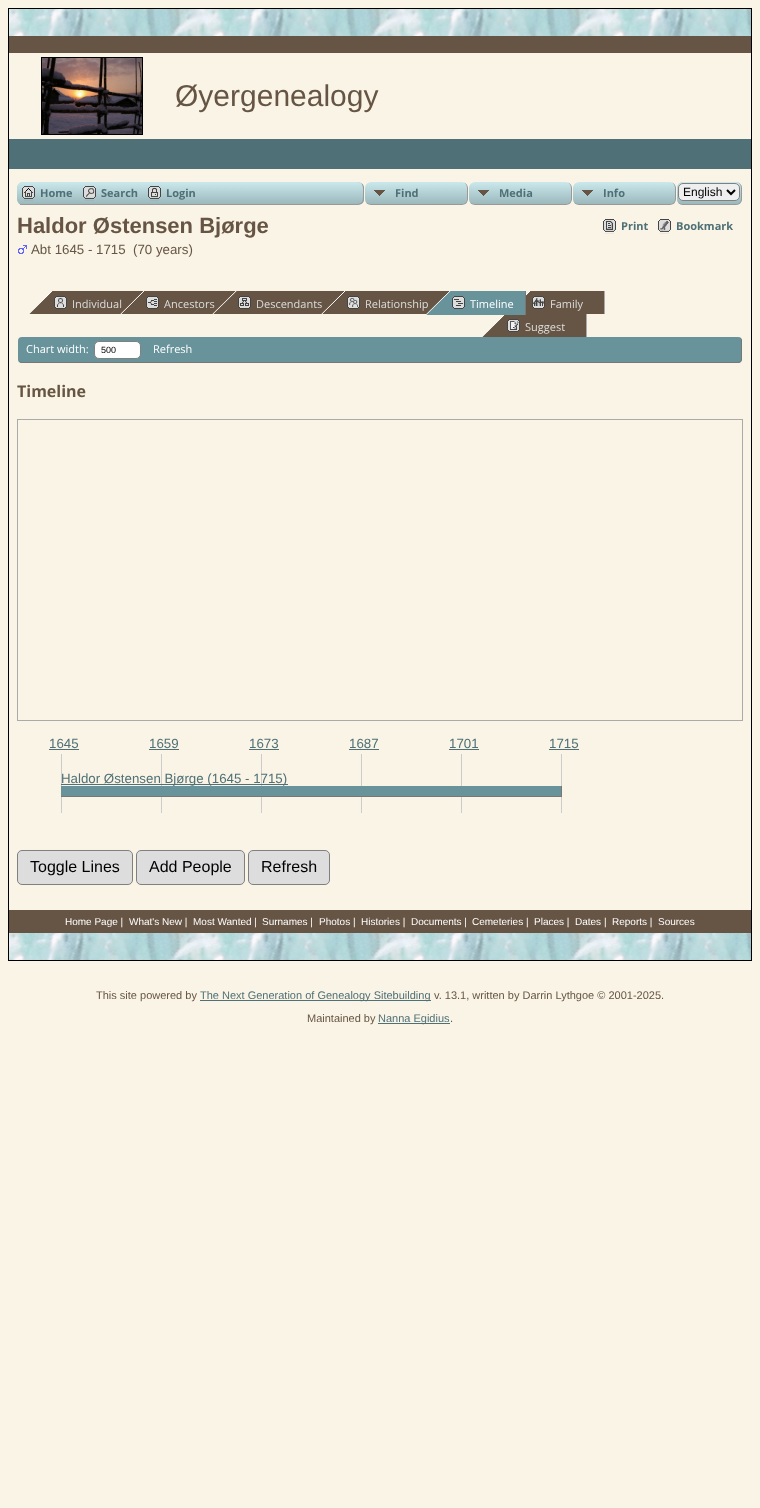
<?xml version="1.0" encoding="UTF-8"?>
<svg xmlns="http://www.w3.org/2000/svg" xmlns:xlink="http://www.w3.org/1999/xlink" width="760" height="1508">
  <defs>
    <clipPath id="clip1"><rect x="17" y="182" width="726" height="23" rx="6" /></clipPath>
    <linearGradient id="g1" gradientUnits="userSpaceOnUse" x1="380" y1="182" x2="380" y2="204"><stop offset="0" stop-color="#cbe9ed" /><stop offset="1" stop-color="#9bb9bd" /></linearGradient>
    <clipPath id="clip2"><path d="M 353 182 h 5 c 3.5 0 6 2.5 6 6 v 11 c 0 3.5 -2.5 6 -6 6 h -5 z" /></clipPath>
    <linearGradient id="g2" gradientUnits="userSpaceOnUse" x1="358" y1="182" x2="358" y2="204"><stop offset="0" stop-color="#cbe9ed" /><stop offset="1" stop-color="#9bb9bd" /></linearGradient>
    <linearGradient id="g3" gradientUnits="userSpaceOnUse" x1="358" y1="204" x2="358" y2="226"><stop offset="0" stop-color="#cbe9ed" /><stop offset="1" stop-color="#9bb9bd" /></linearGradient>
    <clipPath id="clip3"><rect x="677" y="182" width="65" height="23" rx="6" /></clipPath>
    <linearGradient id="g4" gradientUnits="userSpaceOnUse" x1="709" y1="182" x2="709" y2="204"><stop offset="0" stop-color="#cbe9ed" /><stop offset="1" stop-color="#9bb9bd" /></linearGradient>
  </defs>
  <rect width="100%" height="100%" fill="#faf4e6" />
  <rect x="8" y="8" width="744" height="1" fill="#000000" />
  <rect x="751" y="8" width="1" height="953" fill="#000000" />
  <rect x="8" y="960" width="744" height="1" fill="#000000" />
  <rect x="8" y="8" width="1" height="953" fill="#000000" />
  <image x="9" y="9" width="742" height="27" xlink:href="image1.png" />
  <rect x="9" y="36" width="742" height="17" fill="#665544" />
  <rect x="41.5" y="57.5" width="101" height="77" fill="none" stroke="#000000" />
  <image x="42" y="58" width="100" height="76" xlink:href="image2.png" />
  <rect x="9" y="139" width="742" height="30" fill="#4e7076" />
  <rect x="17" y="182" width="726" height="23" rx="6" fill="#b4d1d6" />
  <g clip-path="url(#clip1)">
    <path d="M 23 182 h 714 c 3.5 0 6 2.5 6 6 v 16 h -726 v -16 c 0 -3.5 2.5 -6 6 -6 z" fill="url(#g1)" />
  </g>
  <rect x="20" y="204" width="333" height="1" fill="#999999" />
  <image x="22" y="186" width="13" height="15" xlink:href="image3.png" />
  <image x="83" y="186" width="13" height="15" xlink:href="image4.png" />
  <image x="148" y="186" width="13" height="15" xlink:href="image5.png" />
  <rect x="358" y="182" width="385" height="23" fill="#faf4e6" />
  <g clip-path="url(#clip2)">
    <rect x="353" y="182" width="11" height="22" fill="url(#g2)" />
    <rect x="353" y="204" width="11" height="1" fill="url(#g3)" />
  </g>
  <path d="M 353 182 c 4 0 10 -0.5 11 5 v 13 c -1 5.5 -7 5 -11 5 z m 0 0 h 6 c 5 1.5 4 8 4 11.5 c 0 10 -0.5 10.5 -10 10.5 z" fill="#999999" fill-rule="evenodd" />
  <image x="365" y="182" width="102" height="22" xlink:href="image6.png" />
  <path d="M 371 182 h 91 c 3 0 6 3 6 6 v 11 c 0 3 -3 6 -6 6 h -91 c -3 0 -6 -3 -6 -6 v -11 c 0 -3 3 -6 6 -6 z m 0 0 h 91 c 3 0 5 3 5 6 v 11 c 0 3 -2 5 -5 5 h -91 c -3 0 -6 -2 -6 -5 v -11 c 0 -3 3 -6 6 -6 z" fill="#999999" fill-rule="evenodd" />
  <image x="469" y="182" width="102" height="22" xlink:href="image7.png" />
  <path d="M 475 182 h 91 c 3 0 6 3 6 6 v 11 c 0 3 -3 6 -6 6 h -91 c -3 0 -6 -3 -6 -6 v -11 c 0 -3 3 -6 6 -6 z m 0 0 h 91 c 3 0 5 3 5 6 v 11 c 0 3 -2 5 -5 5 h -91 c -3 0 -6 -2 -6 -5 v -11 c 0 -3 3 -6 6 -6 z" fill="#999999" fill-rule="evenodd" />
  <image x="573" y="182" width="102" height="22" xlink:href="image6.png" />
  <path d="M 579 182 h 91 c 3 0 6 3 6 6 v 11 c 0 3 -3 6 -6 6 h -91 c -3 0 -6 -3 -6 -6 v -11 c 0 -3 3 -6 6 -6 z m 0 0 h 91 c 3 0 5 3 5 6 v 11 c 0 3 -2 5 -5 5 h -91 c -3 0 -6 -2 -6 -5 v -11 c 0 -3 3 -6 6 -6 z" fill="#999999" fill-rule="evenodd" />
  <rect x="677" y="182" width="65" height="23" rx="6" fill="#b4d1d6" />
  <g clip-path="url(#clip3)">
    <path d="M 683 182 h 53 c 3.5 0 6 2.5 6 6 v 16 h -65 v -16 c 0 -3.5 2.5 -6 6 -6 z" fill="url(#g4)" />
  </g>
  <path d="M 683 182 h 53 c 3 0 6 3 6 6 v 11 c 0 3 -3 6 -6 6 h -53 c -3 0 -6 -3 -6 -6 v -11 c 0 -3 3 -6 6 -6 z m 0 0 h 53 c 3 0 5 3 5 6 v 11 c 0 3 -2 5 -5 5 h -53 c -3 0 -6 -2 -6 -5 v -11 c 0 -3 3 -6 6 -6 z" fill="#999999" fill-rule="evenodd" />
  <rect x="678.5" y="183.5" width="61" height="17" rx="4.5" fill="#efefef" stroke="#808080" />
  <path d="M 727 190 l 4 4 l 4 -4" fill="none" stroke="#000000" stroke-width="2" />
  <image x="603" y="219" width="13" height="15" xlink:href="image8.png" />
  <image x="658" y="219" width="13" height="15" xlink:href="image9.png" />
  <image x="18" y="245" width="9" height="9" xlink:href="image10.png" />
  <image x="28" y="291" width="115" height="23" xlink:href="image11.png" />
  <image x="54" y="296" width="13" height="13" xlink:href="image12.png" />
  <image x="481" y="314" width="105" height="23" xlink:href="image23.png" />
  <rect x="525" y="291" width="1" height="24" fill="#777777" />
  <image x="526" y="291" width="78" height="23" xlink:href="image21.png" />
  <rect x="604" y="291" width="1" height="23" fill="#aaaaaa" />
  <image x="532" y="296" width="13" height="13" xlink:href="image22.png" />
  <rect x="586" y="314" width="1" height="23" fill="#aaaaaa" />
  <image x="507" y="319" width="13" height="13" xlink:href="image24.png" />
  <rect x="18" y="337" width="724" height="26" rx="4" fill="#68939b" />
  <path d="M 22 337 h 716 c 2 0 4 2 4 4 v 18 c 0 2 -2 4 -4 4 h -716 c -2 0 -4 -2 -4 -4 v -18 c 0 -2 2 -4 4 -4 z m 0 0 h 716 c 2 0 3 2 3 4 v 18 c 0 2 -1 3 -3 3 h -716 c -2 0 -4 -1 -4 -3 v -18 c 0 -2 2 -4 4 -4 z" fill="#777777" fill-rule="evenodd" />
  <rect x="94.5" y="341.5" width="46" height="17" rx="4.5" fill="#ffffff" stroke="#808080" />
  <rect x="17.5" y="419.5" width="725" height="301" fill="none" stroke="#aaaaaa" />
  <rect x="49" y="749" width="30" height="1" fill="#4e7076" />
  <rect x="149" y="749" width="30" height="1" fill="#4e7076" />
  <rect x="249" y="749" width="30" height="1" fill="#4e7076" />
  <rect x="349" y="749" width="30" height="1" fill="#4e7076" />
  <rect x="449" y="749" width="30" height="1" fill="#4e7076" />
  <rect x="549" y="749" width="30" height="1" fill="#4e7076" />
  <rect x="61" y="754" width="1" height="59" fill="#cccccc" />
  <rect x="161" y="754" width="1" height="59" fill="#cccccc" />
  <rect x="261" y="754" width="1" height="59" fill="#cccccc" />
  <rect x="361" y="754" width="1" height="59" fill="#cccccc" />
  <rect x="461" y="754" width="1" height="59" fill="#cccccc" />
  <rect x="561" y="754" width="1" height="59" fill="#cccccc" />
  <rect x="61" y="784" width="227" height="1" fill="#4e7076" />
  <rect x="61" y="786" width="500" height="10" fill="#68939b" />
  <rect x="561" y="786" width="1" height="11" fill="#777777" />
  <rect x="61" y="796" width="501" height="1" fill="#777777" />
  <rect x="17.5" y="850.5" width="115" height="34" rx="4.5" fill="#dddddd" stroke="#808080" />
  <rect x="136.5" y="850.5" width="108" height="34" rx="4.5" fill="#dddddd" stroke="#808080" />
  <rect x="248.5" y="850.5" width="81" height="34" rx="4.5" fill="#dddddd" stroke="#808080" />
  <rect x="9" y="910" width="742" height="23" fill="#665544" />
  <image x="9" y="933" width="742" height="27" xlink:href="image25.png" />
  <rect x="200" y="1000" width="231" height="1" fill="#4e7076" />
  <rect x="378" y="1023" width="72" height="1" fill="#4e7076" />
  <text x="175" y="106" style="font-family: Liberation Sans; font-size: 30px; fill: #665544">Øyergenealogy</text>
  <text x="40" y="197" style="font-family: Open Sans; font-size: 11px; font-weight: bold; fill: #4e7076">Home</text>
  <text x="101" y="197" style="font-family: Open Sans; font-size: 11px; font-weight: bold; fill: #4e7076">Search</text>
  <text x="166" y="197" style="font-family: Open Sans; font-size: 11px; font-weight: bold; fill: #4e7076">Login</text>
  <text x="395" y="197" style="font-family: Open Sans; font-size: 11px; font-weight: bold; fill: #4e7076">Find</text>
  <text x="499" y="197" style="font-family: Open Sans; font-size: 11px; font-weight: bold; fill: #4e7076">Media</text>
  <text x="603" y="197" style="font-family: Open Sans; font-size: 11px; font-weight: bold; fill: #4e7076">Info</text>
  <text x="683" y="196" style="font-family: Liberation Sans; font-size: 12px; fill: #000000">English</text>
  <text x="17" y="233" style="font-family: Liberation Sans; font-size: 22px; font-weight: bold; fill: #665544">Haldor Østensen Bjørge</text>
  <text x="621" y="230" style="font-family: Open Sans; font-size: 11px; font-weight: bold; fill: #4e7076">Print</text>
  <text x="676" y="230" style="font-family: Open Sans; font-size: 11px; font-weight: bold; fill: #4e7076">Bookmark</text>
  <text x="31" y="254" style="font-family: Liberation Sans; font-size: 13.3px; fill: #665544" xml:space="preserve">Abt 1645 - 1715  (70 years)</text>
  <text x="72" y="308" style="font-family: Open Sans; font-size: 11px; fill: #dddddd">Individual</text>
  <image x="120" y="291" width="116" height="23" xlink:href="image13.png" />
  <image x="146" y="296" width="13" height="13" xlink:href="image14.png" />
  <text x="164" y="308" style="font-family: Open Sans; font-size: 11px; fill: #dddddd">Ancestors</text>
  <image x="212" y="291" width="132" height="23" xlink:href="image15.png" />
  <image x="238" y="296" width="13" height="13" xlink:href="image16.png" />
  <text x="256" y="308" style="font-family: Open Sans; font-size: 11px; fill: #dddddd">Descendants</text>
  <image x="321" y="291" width="129" height="23" xlink:href="image17.png" />
  <image x="347" y="296" width="13" height="13" xlink:href="image18.png" />
  <text x="365" y="308" style="font-family: Open Sans; font-size: 11px; fill: #dddddd">Relationship</text>
  <image x="425" y="291" width="100" height="24" xlink:href="image19.png" />
  <image x="452" y="296" width="13" height="13" xlink:href="image20.png" />
  <text x="470" y="308" style="font-family: Open Sans; font-size: 11px; fill: #ffffff">Timeline</text>
  <text x="550" y="308" style="font-family: Open Sans; font-size: 11px; fill: #dddddd">Family</text>
  <text x="525" y="331" style="font-family: Open Sans; font-size: 11px; fill: #dddddd">Suggest</text>
  <text x="26" y="353" style="font-family: Open Sans; font-size: 11px; fill: #ffffff">Chart width:</text>
  <text x="101" y="353" style="font-family: Liberation Sans; font-size: 9px; fill: #000000">500</text>
  <text x="153" y="353" style="font-family: Open Sans; font-size: 11px; fill: #ffffff">Refresh</text>
  <text x="17" y="397" style="font-family: Open Sans; font-size: 16px; font-weight: bold; fill: #665544">Timeline</text>
  <text x="49" y="748" style="font-family: Liberation Sans; font-size: 13.3px; fill: #4e7076">1645</text>
  <text x="149" y="748" style="font-family: Liberation Sans; font-size: 13.3px; fill: #4e7076">1659</text>
  <text x="249" y="748" style="font-family: Liberation Sans; font-size: 13.3px; fill: #4e7076">1673</text>
  <text x="349" y="748" style="font-family: Liberation Sans; font-size: 13.3px; fill: #4e7076">1687</text>
  <text x="449" y="748" style="font-family: Liberation Sans; font-size: 13.3px; fill: #4e7076">1701</text>
  <text x="549" y="748" style="font-family: Liberation Sans; font-size: 13.3px; fill: #4e7076">1715</text>
  <text x="61" y="783" style="font-family: Liberation Sans; font-size: 13.3px; fill: #4e7076">Haldor Østensen Bjørge (1645 - 1715)</text>
  <text x="30" y="872" style="font-family: Liberation Sans; font-size: 16px; fill: #000000">Toggle Lines</text>
  <text x="149" y="872" style="font-family: Liberation Sans; font-size: 16px; fill: #000000">Add People</text>
  <text x="261" y="872" style="font-family: Liberation Sans; font-size: 16px; fill: #000000">Refresh</text>
  <text x="65" y="925" style="font-family: Liberation Sans; font-size: 10px; fill: #ffffff">Home Page |</text>
  <text x="129" y="925" style="font-family: Liberation Sans; font-size: 10px; fill: #ffffff">What's New |</text>
  <text x="193" y="925" style="font-family: Liberation Sans; font-size: 10px; fill: #ffffff">Most Wanted |</text>
  <text x="262" y="925" style="font-family: Liberation Sans; font-size: 10px; fill: #ffffff">Surnames |</text>
  <text x="319" y="925" style="font-family: Liberation Sans; font-size: 10px; fill: #ffffff">Photos |</text>
  <text x="361" y="925" style="font-family: Liberation Sans; font-size: 10px; fill: #ffffff">Histories |</text>
  <text x="411" y="925" style="font-family: Liberation Sans; font-size: 10px; fill: #ffffff">Documents |</text>
  <text x="472" y="925" style="font-family: Liberation Sans; font-size: 10px; fill: #ffffff">Cemeteries |</text>
  <text x="534" y="925" style="font-family: Liberation Sans; font-size: 10px; fill: #ffffff">Places |</text>
  <text x="575" y="925" style="font-family: Liberation Sans; font-size: 10px; fill: #ffffff">Dates |</text>
  <text x="612" y="925" style="font-family: Liberation Sans; font-size: 10px; fill: #ffffff">Reports |</text>
  <text x="658" y="925" style="font-family: Liberation Sans; font-size: 10px; fill: #ffffff">Sources</text>
  <text x="96" y="999" style="font-family: Liberation Sans; font-size: 11px; fill: #665544">This site powered by</text>
  <text x="200" y="999" style="font-family: Liberation Sans; font-size: 11px; fill: #4e7076">The Next Generation of Genealogy Sitebuilding</text>
  <text x="434" y="999" style="font-family: Liberation Sans; font-size: 11px; fill: #665544">v. 13.1, written by Darrin Lythgoe © 2001-2025.</text>
  <text x="307" y="1022" style="font-family: Liberation Sans; font-size: 11px; fill: #665544">Maintained by</text>
  <text x="378" y="1022" style="font-family: Liberation Sans; font-size: 11px; fill: #4e7076">Nanna Egidius</text>
  <text x="450" y="1022" style="font-family: Liberation Sans; font-size: 11px; fill: #665544">.</text>
</svg>
